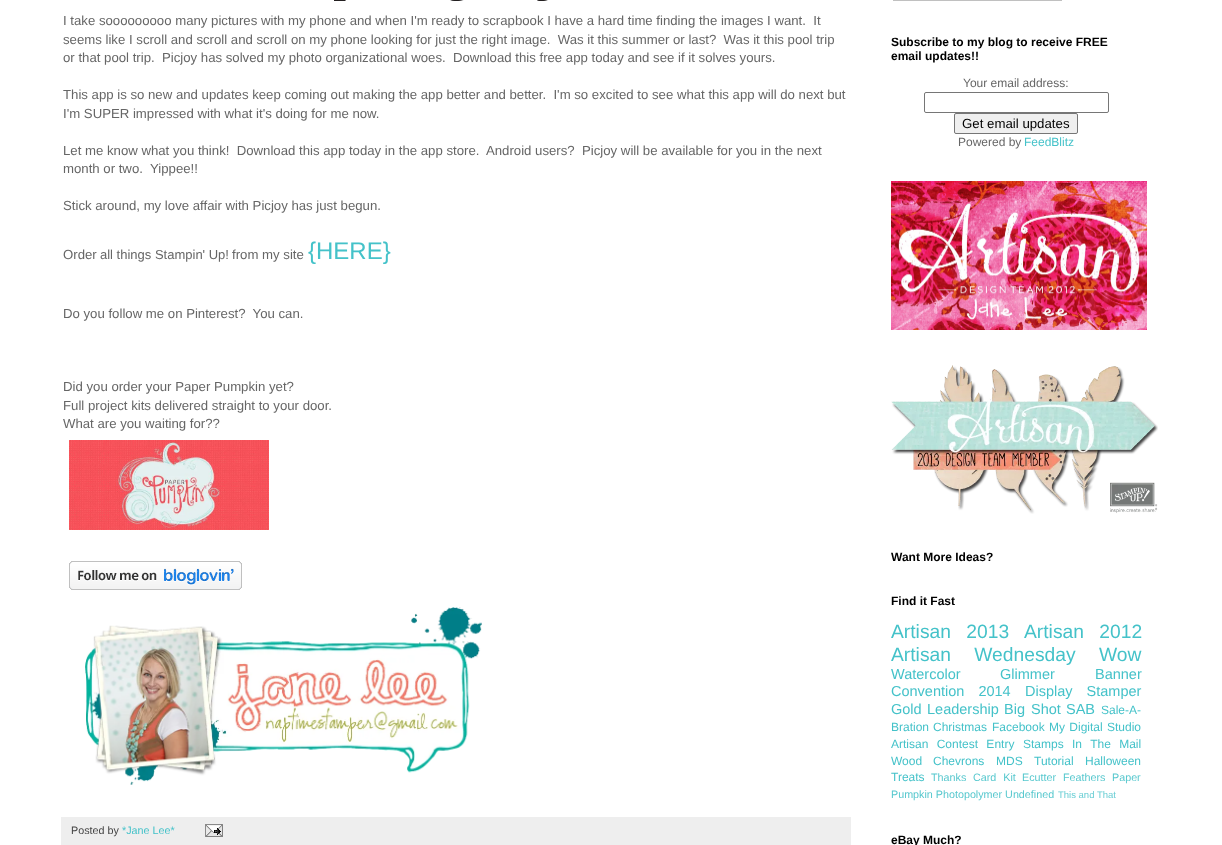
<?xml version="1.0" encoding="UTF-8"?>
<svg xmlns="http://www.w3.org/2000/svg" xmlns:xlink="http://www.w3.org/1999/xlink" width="1222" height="845">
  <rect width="100%" height="100%" fill="#ffffff" />
  <image x="334" y="0" width="214" height="1" xlink:href="image1.png" />
  <image x="69" y="440" width="200" height="90" xlink:href="image2.png" />
  <image x="69" y="561" width="173" height="29" xlink:href="image3.png" />
  <image x="85" y="607" width="397" height="178" xlink:href="image4.png" />
  <rect x="61" y="817" width="790" height="28" fill="#eeeeee" />
  <image x="205" y="824" width="18" height="13" xlink:href="image5.png" />
  <rect x="893" width="169" height="1" fill="#c0c0c0" />
  <rect x="924.5" y="92.5" width="184" height="20" rx="1.5" fill="none" stroke="#767676" />
  <rect x="954.5" y="113.5" width="123" height="20" rx="1.5" fill="#efefef" stroke="#767676" />
  <image x="891" y="181" width="256" height="149" xlink:href="image6.png" />
  <image x="891" y="365" width="267" height="149" xlink:href="image7.png" />
  <text x="63" y="25" style="font-family: Liberation Sans; font-size: 13.2px; fill: #666666" xml:space="preserve">I take sooooooooo many pictures with my phone and when I'm ready to scrapbook I have a hard time finding the images I want.  It</text>
  <text x="63" y="44" style="font-family: Liberation Sans; font-size: 13.2px; fill: #666666" xml:space="preserve">seems like I scroll and scroll and scroll on my phone looking for just the right image.  Was it this summer or last?  Was it this pool trip</text>
  <text x="63" y="62" style="font-family: Liberation Sans; font-size: 13.2px; fill: #666666" xml:space="preserve">or that pool trip.  Picjoy has solved my photo organizational woes.  Download this free app today and see if it solves yours.</text>
  <text x="63" y="99" style="font-family: Liberation Sans; font-size: 13.2px; fill: #666666" xml:space="preserve">This app is so new and updates keep coming out making the app better and better.  I'm so excited to see what this app will do next but</text>
  <text x="63" y="118" style="font-family: Liberation Sans; font-size: 13.2px; fill: #666666">I'm SUPER impressed with what it's doing for me now.</text>
  <text x="63" y="155" style="font-family: Liberation Sans; font-size: 13.2px; fill: #666666" xml:space="preserve">Let me know what you think!  Download this app today in the app store.  Android users?  Picjoy will be available for you in the next</text>
  <text x="63" y="173" style="font-family: Liberation Sans; font-size: 13.2px; fill: #666666" xml:space="preserve">month or two.  Yippee!!</text>
  <text x="63" y="210" style="font-family: Liberation Sans; font-size: 13.2px; fill: #666666">Stick around, my love affair with Picjoy has just begun.</text>
  <text x="63" y="259" style="font-family: Liberation Sans; font-size: 13.2px; fill: #666666">Order</text>
  <text x="100" y="259" style="font-family: Liberation Sans; font-size: 13px; fill: #666666">all things Stampin' Up!</text>
  <text x="232" y="259" style="font-family: Liberation Sans; font-size: 13.2px; fill: #666666">from my site</text>
  <text x="308" y="259" style="font-family: Liberation Sans; font-size: 24px; fill: #44c2c9">{HERE}</text>
  <text x="63" y="318" style="font-family: Liberation Sans; font-size: 13.2px; fill: #666666" xml:space="preserve">Do you follow me on Pinterest?  You can.</text>
  <text x="63" y="391" style="font-family: Liberation Sans; font-size: 13.2px; fill: #666666">Did you order your Paper Pumpkin yet?</text>
  <text x="63" y="410" style="font-family: Liberation Sans; font-size: 13.2px; fill: #666666">Full project kits delivered straight to your door.</text>
  <text x="63" y="428" style="font-family: Liberation Sans; font-size: 13.2px; fill: #666666">What are you waiting for??</text>
  <text x="71" y="834" style="font-family: Liberation Sans; font-size: 10.75px; fill: #444444">Posted by</text>
  <text x="122" y="834" style="font-family: Liberation Sans; font-size: 10.75px; fill: #44c2c9">*Jane Lee*</text>
  <text x="891" y="46" style="font-family: Liberation Sans; font-size: 12px; font-weight: bold; fill: #000000">Subscribe to my blog to receive FREE</text>
  <text x="891" y="60" style="font-family: Liberation Sans; font-size: 12px; font-weight: bold; fill: #000000">email updates!!</text>
  <text x="963" y="87" style="font-family: Liberation Sans; font-size: 12px; fill: #666666">Your email address:</text>
  <text x="962" y="128" style="font-family: Liberation Sans; font-size: 13.25px; fill: #000000">Get email updates</text>
  <text x="958" y="146" style="font-family: Liberation Sans; font-size: 12px; fill: #666666">Powered by</text>
  <text x="1024" y="146" style="font-family: Liberation Sans; font-size: 12px; fill: #44c2c9">FeedBlitz</text>
  <text x="891" y="561" style="font-family: Liberation Sans; font-size: 12px; font-weight: bold; fill: #000000">Want More Ideas?</text>
  <text x="891" y="605" style="font-family: Liberation Sans; font-size: 12px; font-weight: bold; fill: #000000">Find it Fast</text>
  <text x="891" y="638" word-spacing="10" style="font-family: Liberation Sans; font-size: 19.25px; fill: #44c2c9">Artisan 2013</text>
  <text x="1024" y="638" word-spacing="10" style="font-family: Liberation Sans; font-size: 19.25px; fill: #44c2c9">Artisan 2012</text>
  <text x="891" y="661" word-spacing="18" style="font-family: Liberation Sans; font-size: 19.25px; fill: #44c2c9">Artisan Wednesday Wow</text>
  <text x="891" y="679" style="font-family: Liberation Sans; font-size: 14.5px; fill: #44c2c9">Watercolor</text>
  <text x="1000" y="679" style="font-family: Liberation Sans; font-size: 14.5px; fill: #44c2c9">Glimmer</text>
  <text x="1095" y="679" style="font-family: Liberation Sans; font-size: 14.5px; fill: #44c2c9">Banner</text>
  <text x="891" y="696" word-spacing="10" style="font-family: Liberation Sans; font-size: 14.5px; fill: #44c2c9">Convention 2014</text>
  <text x="1025" y="696" word-spacing="10" style="font-family: Liberation Sans; font-size: 14.5px; fill: #44c2c9">Display Stamper</text>
  <text x="891" y="714" style="font-family: Liberation Sans; font-size: 14.5px; fill: #44c2c9">Gold</text>
  <text x="927" y="714" style="font-family: Liberation Sans; font-size: 14.5px; fill: #44c2c9">Leadership</text>
  <text x="1004" y="714" word-spacing="2" style="font-family: Liberation Sans; font-size: 14.5px; fill: #44c2c9">Big Shot</text>
  <text x="1066" y="714" style="font-family: Liberation Sans; font-size: 14.5px; fill: #44c2c9">SAB</text>
  <text x="1101" y="714" style="font-family: Liberation Sans; font-size: 12px; fill: #44c2c9">Sale-A-</text>
  <text x="891" y="731" style="font-family: Liberation Sans; font-size: 12px; fill: #44c2c9">Bration</text>
  <text x="933" y="731" style="font-family: Liberation Sans; font-size: 12px; fill: #44c2c9">Christmas</text>
  <text x="992" y="731" style="font-family: Liberation Sans; font-size: 12px; fill: #44c2c9">Facebook</text>
  <text x="1049" y="731" word-spacing="1" style="font-family: Liberation Sans; font-size: 12px; fill: #44c2c9">My Digital Studio</text>
  <text x="891" y="748" word-spacing="5" style="font-family: Liberation Sans; font-size: 12px; fill: #44c2c9">Artisan Contest Entry</text>
  <text x="1023" y="748" word-spacing="5" style="font-family: Liberation Sans; font-size: 12px; fill: #44c2c9">Stamps In The Mail</text>
  <text x="891" y="765" style="font-family: Liberation Sans; font-size: 12px; fill: #44c2c9">Wood</text>
  <text x="933" y="765" style="font-family: Liberation Sans; font-size: 12px; fill: #44c2c9">Chevrons</text>
  <text x="996" y="765" style="font-family: Liberation Sans; font-size: 12px; fill: #44c2c9">MDS</text>
  <text x="1034" y="765" style="font-family: Liberation Sans; font-size: 12px; fill: #44c2c9">Tutorial</text>
  <text x="1085" y="765" style="font-family: Liberation Sans; font-size: 12px; fill: #44c2c9">Halloween</text>
  <text x="891" y="781" style="font-family: Liberation Sans; font-size: 12px; fill: #44c2c9">Treats</text>
  <text x="931" y="781" style="font-family: Liberation Sans; font-size: 10.75px; fill: #57c8ce">Thanks</text>
  <text x="973" y="781" word-spacing="4" style="font-family: Liberation Sans; font-size: 10.75px; fill: #57c8ce">Card Kit</text>
  <text x="1022" y="781" style="font-family: Liberation Sans; font-size: 10.75px; fill: #57c8ce">Ecutter</text>
  <text x="1063" y="781" style="font-family: Liberation Sans; font-size: 10.75px; fill: #57c8ce">Feathers</text>
  <text x="1112" y="781" style="font-family: Liberation Sans; font-size: 10.75px; fill: #57c8ce">Paper</text>
  <text x="891" y="798" style="font-family: Liberation Sans; font-size: 10.75px; fill: #57c8ce">Pumpkin Photopolymer Undefined</text>
  <text x="1058" y="798" style="font-family: Liberation Sans; font-size: 9.5px; fill: #69ced4">This and That</text>
  <text x="891" y="844" style="font-family: Liberation Sans; font-size: 12px; font-weight: bold; fill: #000000">eBay Much?</text>
</svg>
